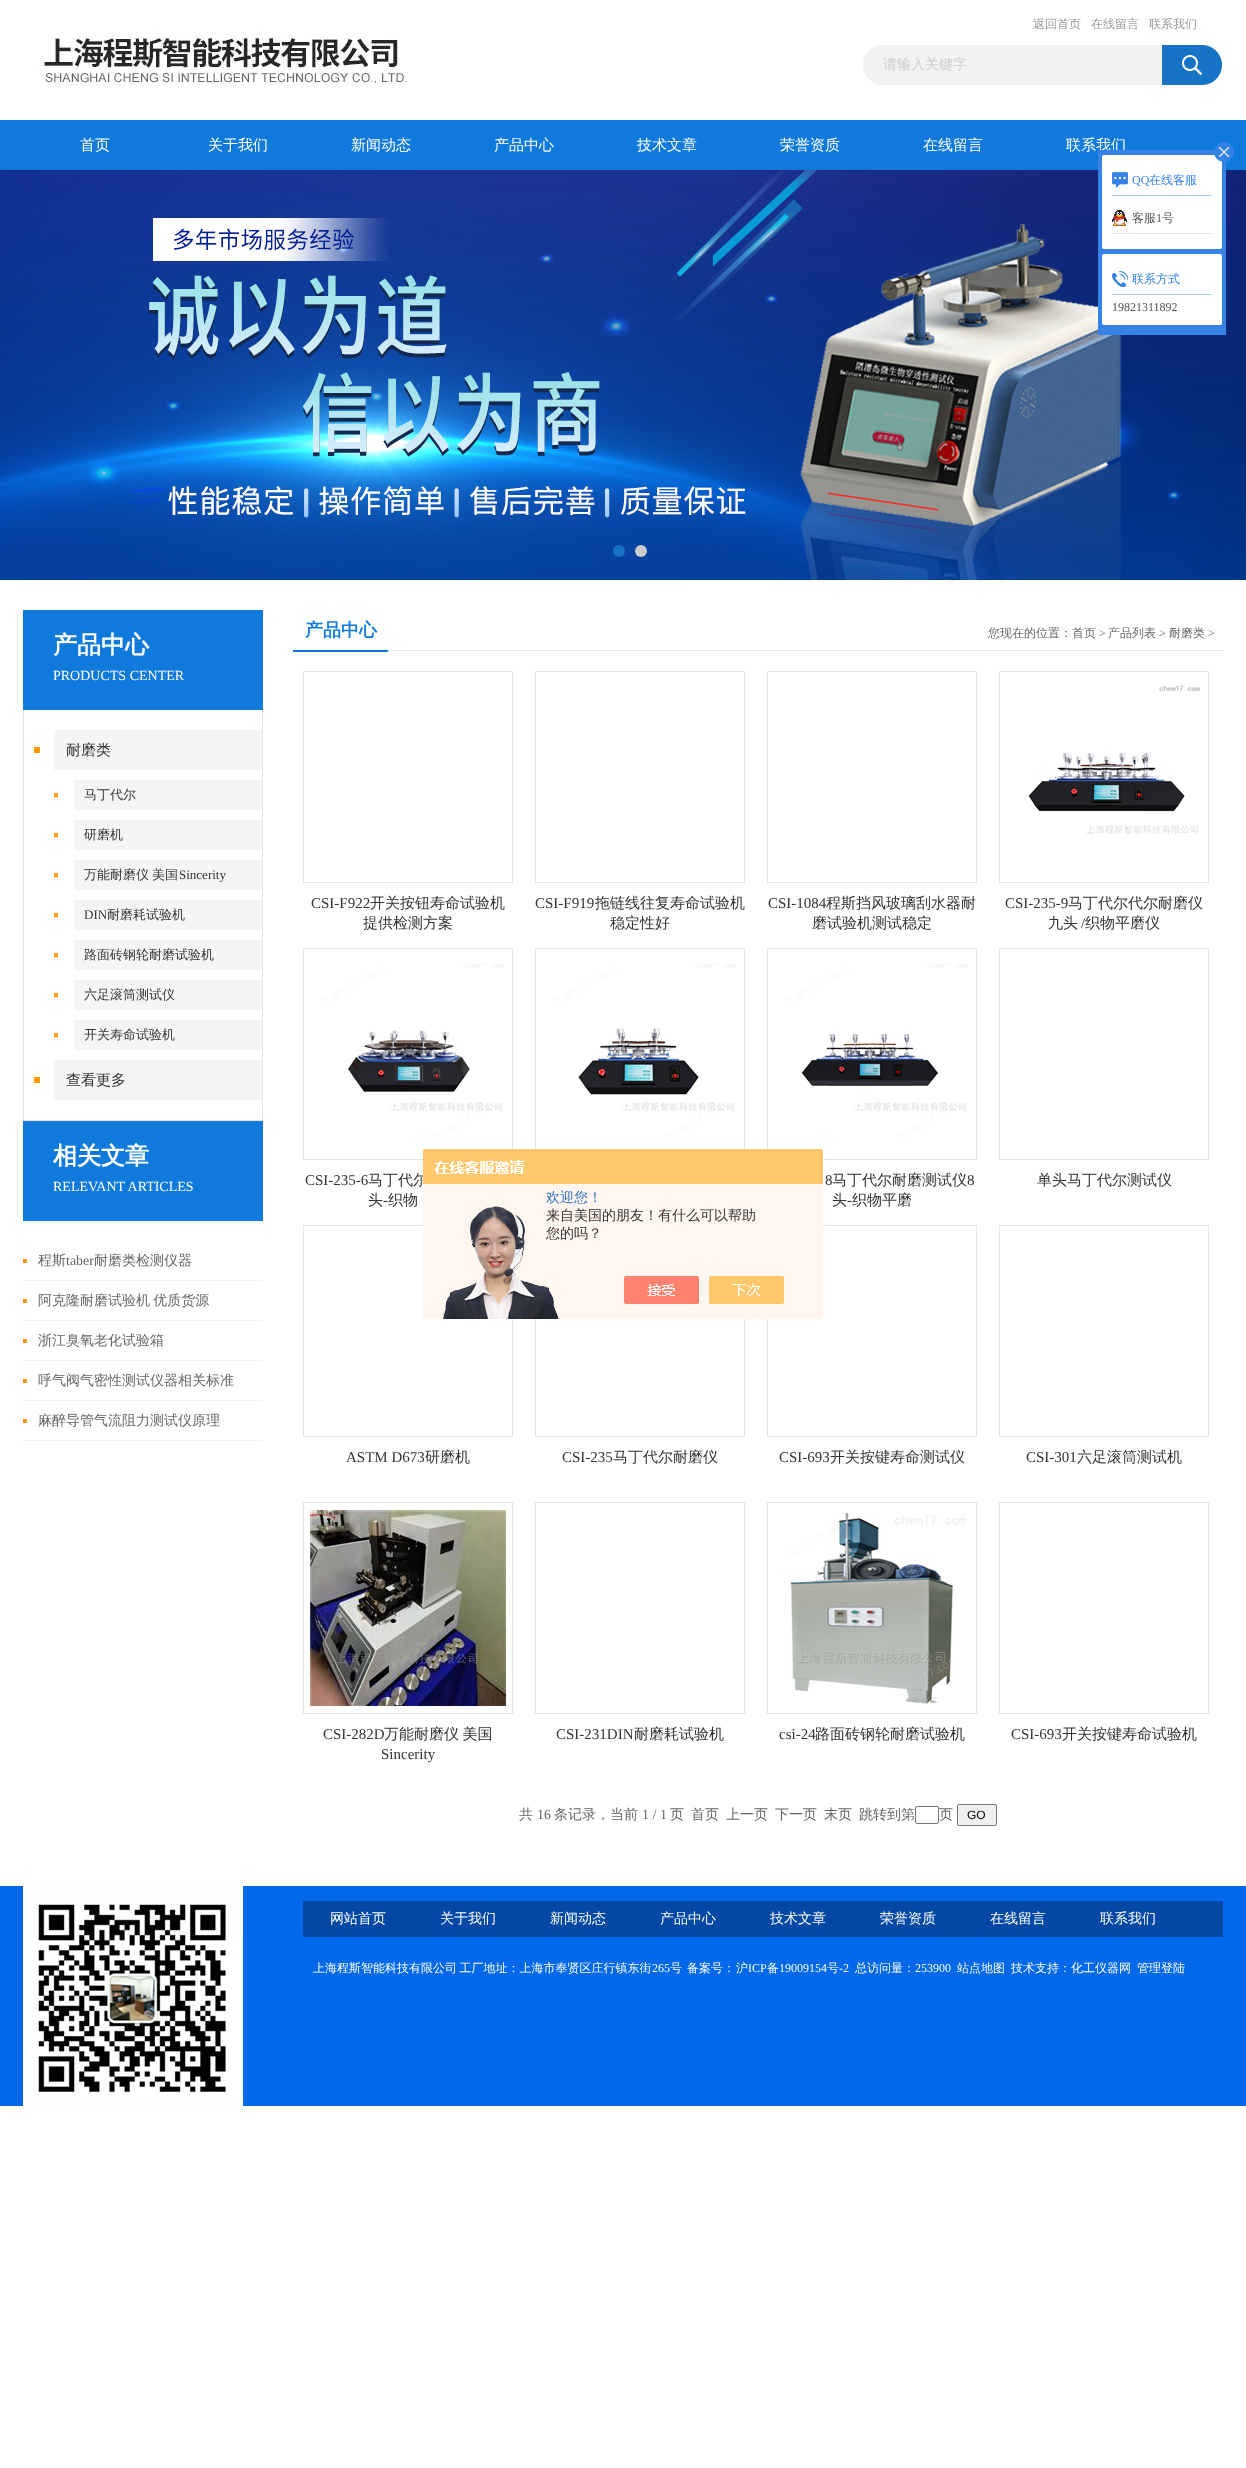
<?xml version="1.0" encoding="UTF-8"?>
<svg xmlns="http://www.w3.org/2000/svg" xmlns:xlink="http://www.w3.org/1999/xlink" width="1246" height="2468">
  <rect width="100%" height="100%" fill="#ffffff" />
  <image x="39" y="31" width="368" height="56" xlink:href="image1.png" />
  <path d="M 883 45 h 279 v 40 h -279 c -11 0 -20 -9 -20 -20 c 0 -11 9 -20 20 -20 z" fill="#f2f2f2" />
  <image x="1162" y="45" width="60" height="40" xlink:href="image2.png" />
  <rect y="120" width="1246" height="50" fill="#0f7adb" />
  <image x="0" y="170" width="1246" height="410" xlink:href="image3.png" />
  <circle cx="619" cy="551" r="6" fill="#1773c6" />
  <circle cx="641" cy="551" r="6" fill="#cccccc" />
  <rect x="23" y="610" width="240" height="100" fill="#0f7adb" />
  <rect x="262" y="710" width="1" height="411" fill="#e5e5e5" />
  <rect x="23" y="1120" width="240" height="1" fill="#e5e5e5" />
  <rect x="23" y="710" width="1" height="411" fill="#e5e5e5" />
  <rect x="34" y="747" width="6" height="6" fill="#ff9900" />
  <rect x="54" y="730" width="208" height="40" fill="#f5f5f5" />
  <rect x="54" y="793" width="4" height="4" fill="#ff9900" />
  <rect x="74" y="780" width="188" height="30" fill="#f5f5f5" />
  <rect x="54" y="833" width="4" height="4" fill="#ff9900" />
  <rect x="74" y="820" width="188" height="30" fill="#f5f5f5" />
  <rect x="54" y="873" width="4" height="4" fill="#ff9900" />
  <rect x="74" y="860" width="188" height="30" fill="#f5f5f5" />
  <rect x="54" y="913" width="4" height="4" fill="#ff9900" />
  <rect x="74" y="900" width="188" height="30" fill="#f5f5f5" />
  <rect x="54" y="953" width="4" height="4" fill="#ff9900" />
  <rect x="74" y="940" width="188" height="30" fill="#f5f5f5" />
  <rect x="54" y="993" width="4" height="4" fill="#ff9900" />
  <rect x="74" y="980" width="188" height="30" fill="#f5f5f5" />
  <rect x="54" y="1033" width="4" height="4" fill="#ff9900" />
  <rect x="74" y="1020" width="188" height="30" fill="#f5f5f5" />
  <rect x="34" y="1077" width="6" height="6" fill="#ff9900" />
  <rect x="54" y="1060" width="208" height="40" fill="#f5f5f5" />
  <rect x="23" y="1121" width="240" height="100" fill="#0f7adb" />
  <rect x="23" y="1259" width="4" height="4" fill="#ff9900" />
  <path d="M 23 1280.5 h 240" fill="none" stroke="#e5e5e5" stroke-dasharray="1 1" />
  <rect x="23" y="1299" width="4" height="4" fill="#ff9900" />
  <path d="M 23 1320.5 h 240" fill="none" stroke="#e5e5e5" stroke-dasharray="1 1" />
  <rect x="23" y="1339" width="4" height="4" fill="#ff9900" />
  <path d="M 23 1360.5 h 240" fill="none" stroke="#e5e5e5" stroke-dasharray="1 1" />
  <rect x="23" y="1379" width="4" height="4" fill="#ff9900" />
  <path d="M 23 1400.5 h 240" fill="none" stroke="#e5e5e5" stroke-dasharray="1 1" />
  <rect x="23" y="1419" width="4" height="4" fill="#ff9900" />
  <path d="M 23 1440.5 h 240" fill="none" stroke="#e5e5e5" stroke-dasharray="1 1" />
  <rect x="388" y="650" width="835" height="1" fill="#e5e5e5" />
  <rect x="293" y="650" width="95" height="2" fill="#0f7adb" />
  <rect x="303.5" y="671.5" width="209" height="211" fill="none" stroke="#e5e5e5" />
  <rect x="535.5" y="671.5" width="209" height="211" fill="none" stroke="#e5e5e5" />
  <rect x="767.5" y="671.5" width="209" height="211" fill="none" stroke="#e5e5e5" />
  <rect x="999.5" y="671.5" width="209" height="211" fill="none" stroke="#e5e5e5" />
  <image x="1028" y="685" width="172" height="149" xlink:href="image8.png" />
  <rect x="535.5" y="948.5" width="209" height="211" fill="none" stroke="#e5e5e5" />
  <image x="552" y="962" width="184" height="180" xlink:href="image9.png" />
  <rect x="303.5" y="948.5" width="209" height="211" fill="none" stroke="#e5e5e5" />
  <image x="320" y="962" width="184" height="180" xlink:href="image10.png" />
  <rect x="767.5" y="948.5" width="209" height="211" fill="none" stroke="#e5e5e5" />
  <image x="784" y="962" width="184" height="180" xlink:href="image11.png" />
  <rect x="999.5" y="948.5" width="209" height="211" fill="none" stroke="#e5e5e5" />
  <rect x="303.5" y="1225.5" width="209" height="211" fill="none" stroke="#e5e5e5" />
  <rect x="535.5" y="1225.5" width="209" height="211" fill="none" stroke="#e5e5e5" />
  <rect x="767.5" y="1225.5" width="209" height="211" fill="none" stroke="#e5e5e5" />
  <rect x="999.5" y="1225.5" width="209" height="211" fill="none" stroke="#e5e5e5" />
  <rect x="303.5" y="1502.5" width="209" height="211" fill="none" stroke="#e5e5e5" />
  <image x="310" y="1510" width="196" height="196" xlink:href="image12.png" />
  <rect x="535.5" y="1502.5" width="209" height="211" fill="none" stroke="#e5e5e5" />
  <rect x="767.5" y="1502.5" width="209" height="211" fill="none" stroke="#e5e5e5" />
  <image x="784" y="1512" width="182" height="192" xlink:href="image13.png" />
  <rect x="999.5" y="1502.5" width="209" height="211" fill="none" stroke="#e5e5e5" />
  <rect x="915.5" y="1806.5" width="23" height="17" rx="1.5" fill="none" stroke="#767676" />
  <rect x="957.5" y="1804.5" width="39" height="21" rx="1.5" fill="#efefef" stroke="#767676" />
  <rect y="1886" width="1246" height="220" fill="#0168e9" />
  <image x="23" y="1886" width="220" height="220" xlink:href="image15.png" />
  <rect x="303" y="1901" width="920" height="36" fill="#0248a4" />
  <text x="1033" y="28" style="font-family: WenQuanYi Zen Hei; font-size: 12px; font-weight: 500; fill: #999999">返回首页</text>
  <text x="1091" y="28" style="font-family: WenQuanYi Zen Hei; font-size: 12px; font-weight: 500; fill: #999999">在线留言</text>
  <text x="1149" y="28" style="font-family: WenQuanYi Zen Hei; font-size: 12px; font-weight: 500; fill: #999999">联系我们</text>
  <text x="883" y="69" style="font-family: WenQuanYi Zen Hei; font-size: 14px; font-weight: 500; fill: #cccccc">请输入关键字</text>
  <text x="80" y="150" style="font-family: WenQuanYi Zen Hei; font-size: 15px; font-weight: 500; fill: #ffffff">首页</text>
  <text x="208" y="150" style="font-family: WenQuanYi Zen Hei; font-size: 15px; font-weight: 500; fill: #ffffff">关于我们</text>
  <text x="351" y="150" style="font-family: WenQuanYi Zen Hei; font-size: 15px; font-weight: 500; fill: #ffffff">新闻动态</text>
  <text x="494" y="150" style="font-family: WenQuanYi Zen Hei; font-size: 15px; font-weight: 500; fill: #ffffff">产品中心</text>
  <text x="637" y="150" style="font-family: WenQuanYi Zen Hei; font-size: 15px; font-weight: 500; fill: #ffffff">技术文章</text>
  <text x="780" y="150" style="font-family: WenQuanYi Zen Hei; font-size: 15px; font-weight: 500; fill: #ffffff">荣誉资质</text>
  <text x="923" y="150" style="font-family: WenQuanYi Zen Hei; font-size: 15px; font-weight: 500; fill: #ffffff">在线留言</text>
  <text x="1066" y="150" style="font-family: WenQuanYi Zen Hei; font-size: 15px; font-weight: 500; fill: #ffffff">联系我们</text>
  <rect x="1098" y="150" width="128" height="185" fill="#3782e7" />
  <rect x="1102" y="155" width="120" height="94" rx="2" fill="#ffffff" />
  <circle cx="1224" cy="152" r="10" fill="#3782e7" />
  <image x="1219" y="147" width="10" height="10" xlink:href="image4.png" />
  <image x="1112" y="172" width="16" height="16" xlink:href="image5.png" />
  <rect x="1112" y="195" width="100" height="1" fill="#a3caff" />
  <text x="1132" y="184" style="font-family: Liberation Serif; font-size: 12px; fill: #3782e7">QQ</text>
  <text x="1149" y="184" style="font-family: WenQuanYi Zen Hei; font-size: 12px; font-weight: 500; fill: #3782e7">在线客服</text>
  <image x="1112" y="210" width="15" height="16" xlink:href="image6.png" />
  <rect x="1112" y="233" width="100" height="1" fill="#e6e5e4" />
  <text x="1132" y="222" style="font-family: WenQuanYi Zen Hei; font-size: 12px; font-weight: 500; fill: #555555">客服</text>
  <text x="1156" y="222" style="font-family: Liberation Serif; font-size: 12px; fill: #555555">1</text>
  <text x="1162" y="222" style="font-family: WenQuanYi Zen Hei; font-size: 12px; font-weight: 500; fill: #555555">号</text>
  <rect x="1102" y="254" width="120" height="71" rx="2" fill="#ffffff" />
  <image x="1112" y="271" width="16" height="16" xlink:href="image7.png" />
  <rect x="1112" y="294" width="100" height="1" fill="#a3caff" />
  <text x="1132" y="283" style="font-family: WenQuanYi Zen Hei; font-size: 12px; font-weight: 500; fill: #3782e7">联系方式</text>
  <text x="1112" y="311" style="font-family: Liberation Serif; font-size: 12px; fill: #555555">19821311892</text>
  <text x="53" y="653" style="font-family: WenQuanYi Zen Hei; font-size: 24px; font-weight: bold; fill: #ffffff">产品中心</text>
  <text x="53" y="680" style="font-family: Liberation Serif; font-size: 14px; fill: #ffffff">PRODUCTS CENTER</text>
  <text x="66" y="755" style="font-family: WenQuanYi Zen Hei; font-size: 15px; font-weight: 500; fill: #333333">耐磨类</text>
  <text x="84" y="799" style="font-family: WenQuanYi Zen Hei; font-size: 13px; font-weight: 500; fill: #333333">马丁代尔</text>
  <text x="84" y="839" style="font-family: WenQuanYi Zen Hei; font-size: 13px; font-weight: 500; fill: #333333">研磨机</text>
  <text x="84" y="879" word-spacing="-1" style="font-family: WenQuanYi Zen Hei; font-size: 13px; font-weight: 500; fill: #333333">万能耐磨仪 美国</text>
  <text x="179" y="879" style="font-family: Liberation Serif; font-size: 13px; fill: #333333">Sincerity</text>
  <text x="84" y="919" style="font-family: Liberation Serif; font-size: 13px; fill: #333333">DIN</text>
  <text x="107" y="919" style="font-family: WenQuanYi Zen Hei; font-size: 13px; font-weight: 500; fill: #333333">耐磨耗试验机</text>
  <text x="84" y="959" style="font-family: WenQuanYi Zen Hei; font-size: 13px; font-weight: 500; fill: #333333">路面砖钢轮耐磨试验机</text>
  <text x="84" y="999" style="font-family: WenQuanYi Zen Hei; font-size: 13px; font-weight: 500; fill: #333333">六足滚筒测试仪</text>
  <text x="84" y="1039" style="font-family: WenQuanYi Zen Hei; font-size: 13px; font-weight: 500; fill: #333333">开关寿命试验机</text>
  <text x="66" y="1085" style="font-family: WenQuanYi Zen Hei; font-size: 15px; font-weight: 500; fill: #333333">查看更多</text>
  <text x="53" y="1164" style="font-family: WenQuanYi Zen Hei; font-size: 24px; font-weight: bold; fill: #ffffff">相关文章</text>
  <text x="53" y="1191" style="font-family: Liberation Serif; font-size: 14px; fill: #ffffff">RELEVANT ARTICLES</text>
  <text x="38" y="1265" style="font-family: WenQuanYi Zen Hei; font-size: 14px; font-weight: 500; fill: #666666">程斯</text>
  <text x="66" y="1265" style="font-family: Liberation Serif; font-size: 14px; fill: #666666">taber</text>
  <text x="94" y="1265" style="font-family: WenQuanYi Zen Hei; font-size: 14px; font-weight: 500; fill: #666666">耐磨类检测仪器</text>
  <text x="38" y="1305" word-spacing="-1" style="font-family: WenQuanYi Zen Hei; font-size: 14px; font-weight: 500; fill: #666666">阿克隆耐磨试验机 优质货源</text>
  <text x="38" y="1345" style="font-family: WenQuanYi Zen Hei; font-size: 14px; font-weight: 500; fill: #666666">浙江臭氧老化试验箱</text>
  <text x="38" y="1385" style="font-family: WenQuanYi Zen Hei; font-size: 14px; font-weight: 500; fill: #666666">呼气阀气密性测试仪器相关标准</text>
  <text x="38" y="1425" style="font-family: WenQuanYi Zen Hei; font-size: 14px; font-weight: 500; fill: #666666">麻醉导管气流阻力测试仪原理</text>
  <text x="305" y="636" style="font-family: WenQuanYi Zen Hei; font-size: 18px; font-weight: bold; fill: #0f7adb">产品中心</text>
  <text x="988" y="637" style="font-family: WenQuanYi Zen Hei; font-size: 12px; font-weight: 500; fill: #666666">您现在的位置：首页</text>
  <text x="1099" y="637" style="font-family: Liberation Serif; font-size: 12px; fill: #666666">&gt;</text>
  <text x="1108" y="637" style="font-family: WenQuanYi Zen Hei; font-size: 12px; font-weight: 500; fill: #666666">产品列表</text>
  <text x="1159" y="637" style="font-family: Liberation Serif; font-size: 12px; fill: #666666">&gt;</text>
  <text x="1169" y="637" style="font-family: WenQuanYi Zen Hei; font-size: 12px; font-weight: 500; fill: #666666">耐磨类</text>
  <text x="1208" y="637" style="font-family: Liberation Serif; font-size: 12px; fill: #666666">&gt;</text>
  <text x="311" y="908" style="font-family: Liberation Serif; font-size: 15px; fill: #333333">CSI-F922</text>
  <text x="370" y="908" style="font-family: WenQuanYi Zen Hei; font-size: 15px; font-weight: 500; fill: #333333">开关按钮寿命试验机</text>
  <text x="363" y="928" style="font-family: WenQuanYi Zen Hei; font-size: 15px; font-weight: 500; fill: #333333">提供检测方案</text>
  <text x="535" y="908" style="font-family: Liberation Serif; font-size: 15px; fill: #333333">CSI-F919</text>
  <text x="595" y="908" style="font-family: WenQuanYi Zen Hei; font-size: 15px; font-weight: 500; fill: #333333">拖链线往复寿命试验机</text>
  <text x="610" y="928" style="font-family: WenQuanYi Zen Hei; font-size: 15px; font-weight: 500; fill: #333333">稳定性好</text>
  <text x="768" y="908" style="font-family: Liberation Serif; font-size: 15px; fill: #333333">CSI-1084</text>
  <text x="826" y="908" style="font-family: WenQuanYi Zen Hei; font-size: 15px; font-weight: 500; fill: #333333">程斯挡风玻璃刮水器耐</text>
  <text x="812" y="928" style="font-family: WenQuanYi Zen Hei; font-size: 15px; font-weight: 500; fill: #333333">磨试验机测试稳定</text>
  <text x="1005" y="908" style="font-family: Liberation Serif; font-size: 15px; fill: #333333">CSI-235-9</text>
  <text x="1068" y="908" style="font-family: WenQuanYi Zen Hei; font-size: 15px; font-weight: 500; fill: #333333">马丁代尔代尔耐磨仪</text>
  <text x="1048" y="928" style="font-family: WenQuanYi Zen Hei; font-size: 15px; font-weight: 500; fill: #333333">九头</text>
  <text x="1081" y="928" style="font-family: Liberation Serif; font-size: 15px; fill: #333333">/</text>
  <text x="1085" y="928" style="font-family: WenQuanYi Zen Hei; font-size: 15px; font-weight: 500; fill: #333333">织物平磨仪</text>
  <text x="305" y="1185" style="font-family: Liberation Serif; font-size: 15px; fill: #333333">CSI-235-6</text>
  <text x="368" y="1185" style="font-family: WenQuanYi Zen Hei; font-size: 15px; font-weight: 500; fill: #333333">马丁代尔</text>
  <text x="368" y="1205" style="font-family: WenQuanYi Zen Hei; font-size: 15px; font-weight: 500; fill: #333333">头</text>
  <text x="383" y="1205" style="font-family: Liberation Serif; font-size: 15px; fill: #333333">-</text>
  <text x="388" y="1205" style="font-family: WenQuanYi Zen Hei; font-size: 15px; font-weight: 500; fill: #333333">织物</text>
  <text x="825" y="1185" style="font-family: Liberation Serif; font-size: 15px; fill: #333333">8</text>
  <text x="832" y="1185" style="font-family: WenQuanYi Zen Hei; font-size: 15px; font-weight: 500; fill: #333333">马丁代尔耐磨测试仪</text>
  <text x="967" y="1185" style="font-family: Liberation Serif; font-size: 15px; fill: #333333">8</text>
  <text x="832" y="1205" style="font-family: WenQuanYi Zen Hei; font-size: 15px; font-weight: 500; fill: #333333">头</text>
  <text x="847" y="1205" style="font-family: Liberation Serif; font-size: 15px; fill: #333333">-</text>
  <text x="852" y="1205" style="font-family: WenQuanYi Zen Hei; font-size: 15px; font-weight: 500; fill: #333333">织物平磨</text>
  <text x="1037" y="1185" style="font-family: WenQuanYi Zen Hei; font-size: 15px; font-weight: 500; fill: #333333">单头马丁代尔测试仪</text>
  <text x="346" y="1462" style="font-family: Liberation Serif; font-size: 15px; fill: #333333">ASTM D673</text>
  <text x="425" y="1462" style="font-family: WenQuanYi Zen Hei; font-size: 15px; font-weight: 500; fill: #333333">研磨机</text>
  <text x="562" y="1462" style="font-family: Liberation Serif; font-size: 15px; fill: #333333">CSI-235</text>
  <text x="613" y="1462" style="font-family: WenQuanYi Zen Hei; font-size: 15px; font-weight: 500; fill: #333333">马丁代尔耐磨仪</text>
  <text x="779" y="1462" style="font-family: Liberation Serif; font-size: 15px; fill: #333333">CSI-693</text>
  <text x="830" y="1462" style="font-family: WenQuanYi Zen Hei; font-size: 15px; font-weight: 500; fill: #333333">开关按键寿命测试仪</text>
  <text x="1026" y="1462" style="font-family: Liberation Serif; font-size: 15px; fill: #333333">CSI-301</text>
  <text x="1077" y="1462" style="font-family: WenQuanYi Zen Hei; font-size: 15px; font-weight: 500; fill: #333333">六足滚筒测试机</text>
  <text x="323" y="1739" style="font-family: Liberation Serif; font-size: 15px; fill: #333333">CSI-282D</text>
  <text x="384" y="1739" word-spacing="-1" style="font-family: WenQuanYi Zen Hei; font-size: 15px; font-weight: 500; fill: #333333">万能耐磨仪 美国</text>
  <text x="381" y="1759" style="font-family: Liberation Serif; font-size: 15px; fill: #333333">Sincerity</text>
  <text x="556" y="1739" style="font-family: Liberation Serif; font-size: 15px; fill: #333333">CSI-231DIN</text>
  <text x="634" y="1739" style="font-family: WenQuanYi Zen Hei; font-size: 15px; font-weight: 500; fill: #333333">耐磨耗试验机</text>
  <text x="779" y="1739" style="font-family: Liberation Serif; font-size: 15px; fill: #333333">csi-24</text>
  <text x="815" y="1739" style="font-family: WenQuanYi Zen Hei; font-size: 15px; font-weight: 500; fill: #333333">路面砖钢轮耐磨试验机</text>
  <text x="1011" y="1739" style="font-family: Liberation Serif; font-size: 15px; fill: #333333">CSI-693</text>
  <text x="1062" y="1739" style="font-family: WenQuanYi Zen Hei; font-size: 15px; font-weight: 500; fill: #333333">开关按键寿命试验机</text>
  <text x="519" y="1819" style="font-family: WenQuanYi Zen Hei; font-size: 14px; font-weight: 500; fill: #666666">共</text>
  <text x="537" y="1819" style="font-family: Liberation Serif; font-size: 14px; fill: #666666">16</text>
  <text x="554" y="1819" style="font-family: WenQuanYi Zen Hei; font-size: 14px; font-weight: 500; fill: #666666">条记录，当前</text>
  <text x="642" y="1819" style="font-family: Liberation Serif; font-size: 14px; fill: #666666">1 / 1</text>
  <text x="670" y="1819" style="font-family: WenQuanYi Zen Hei; font-size: 14px; font-weight: 500; fill: #666666">页</text>
  <text x="691" y="1819" style="font-family: WenQuanYi Zen Hei; font-size: 14px; font-weight: 500; fill: #666666">首页</text>
  <text x="726" y="1819" style="font-family: WenQuanYi Zen Hei; font-size: 14px; font-weight: 500; fill: #666666">上一页</text>
  <text x="775" y="1819" style="font-family: WenQuanYi Zen Hei; font-size: 14px; font-weight: 500; fill: #666666">下一页</text>
  <text x="824" y="1819" style="font-family: WenQuanYi Zen Hei; font-size: 14px; font-weight: 500; fill: #666666">末页</text>
  <text x="859" y="1819" style="font-family: WenQuanYi Zen Hei; font-size: 14px; font-weight: 500; fill: #666666">跳转到第</text>
  <text x="939" y="1819" style="font-family: WenQuanYi Zen Hei; font-size: 14px; font-weight: 500; fill: #666666">页</text>
  <text x="967" y="1819" style="font-family: Liberation Sans; font-size: 12px; fill: #000000">GO</text>
  <image x="423" y="1149" width="400" height="170" xlink:href="image14.png" />
  <text x="546" y="1202" style="font-family: WenQuanYi Zen Hei; font-size: 14px; font-weight: 500; fill: #2e6ec6">欢迎您！</text>
  <text x="546" y="1220" style="font-family: WenQuanYi Zen Hei; font-size: 14px; font-weight: 500; fill: #333333">来自美国的朋友！有什么可以帮助</text>
  <text x="546" y="1238" style="font-family: WenQuanYi Zen Hei; font-size: 14px; font-weight: 500; fill: #333333">您的吗？</text>
  <text x="330" y="1923" style="font-family: WenQuanYi Zen Hei; font-size: 14px; font-weight: 500; fill: #ffffff">网站首页</text>
  <text x="440" y="1923" style="font-family: WenQuanYi Zen Hei; font-size: 14px; font-weight: 500; fill: #ffffff">关于我们</text>
  <text x="550" y="1923" style="font-family: WenQuanYi Zen Hei; font-size: 14px; font-weight: 500; fill: #ffffff">新闻动态</text>
  <text x="660" y="1923" style="font-family: WenQuanYi Zen Hei; font-size: 14px; font-weight: 500; fill: #ffffff">产品中心</text>
  <text x="770" y="1923" style="font-family: WenQuanYi Zen Hei; font-size: 14px; font-weight: 500; fill: #ffffff">技术文章</text>
  <text x="880" y="1923" style="font-family: WenQuanYi Zen Hei; font-size: 14px; font-weight: 500; fill: #ffffff">荣誉资质</text>
  <text x="990" y="1923" style="font-family: WenQuanYi Zen Hei; font-size: 14px; font-weight: 500; fill: #ffffff">在线留言</text>
  <text x="1100" y="1923" style="font-family: WenQuanYi Zen Hei; font-size: 14px; font-weight: 500; fill: #ffffff">联系我们</text>
  <text x="313" y="1972" word-spacing="-1" style="font-family: WenQuanYi Zen Hei; font-size: 12px; font-weight: 500; fill: #ffffff">上海程斯智能科技有限公司 工厂地址：上海市奉贤区庄行镇东街</text>
  <text x="652" y="1972" style="font-family: Liberation Serif; font-size: 12px; fill: #ffffff">265</text>
  <text x="670" y="1972" style="font-family: WenQuanYi Zen Hei; font-size: 12px; font-weight: 500; fill: #ffffff">号</text>
  <text x="687" y="1972" style="font-family: WenQuanYi Zen Hei; font-size: 12px; font-weight: 500; fill: #ffffff">备案号：</text>
  <text x="736" y="1972" style="font-family: WenQuanYi Zen Hei; font-size: 12px; font-weight: 500; fill: #ffffff">沪</text>
  <text x="748" y="1972" style="font-family: Liberation Serif; font-size: 12px; fill: #ffffff">ICP</text>
  <text x="767" y="1972" style="font-family: WenQuanYi Zen Hei; font-size: 12px; font-weight: 500; fill: #ffffff">备</text>
  <text x="779" y="1972" style="font-family: Liberation Serif; font-size: 12px; fill: #ffffff">19009154</text>
  <text x="827" y="1972" style="font-family: WenQuanYi Zen Hei; font-size: 12px; font-weight: 500; fill: #ffffff">号</text>
  <text x="839" y="1972" style="font-family: Liberation Serif; font-size: 12px; fill: #ffffff">-2</text>
  <text x="855" y="1972" style="font-family: WenQuanYi Zen Hei; font-size: 12px; font-weight: 500; fill: #ffffff">总访问量：</text>
  <text x="915" y="1972" style="font-family: Liberation Serif; font-size: 12px; fill: #ffffff">253900</text>
  <text x="957" y="1972" style="font-family: WenQuanYi Zen Hei; font-size: 12px; font-weight: 500; fill: #ffffff">站点地图</text>
  <text x="1011" y="1972" style="font-family: WenQuanYi Zen Hei; font-size: 12px; font-weight: 500; fill: #ffffff">技术支持：化工仪器网</text>
  <text x="1137" y="1972" style="font-family: WenQuanYi Zen Hei; font-size: 12px; font-weight: 500; fill: #ffffff">管理登陆</text>
</svg>
